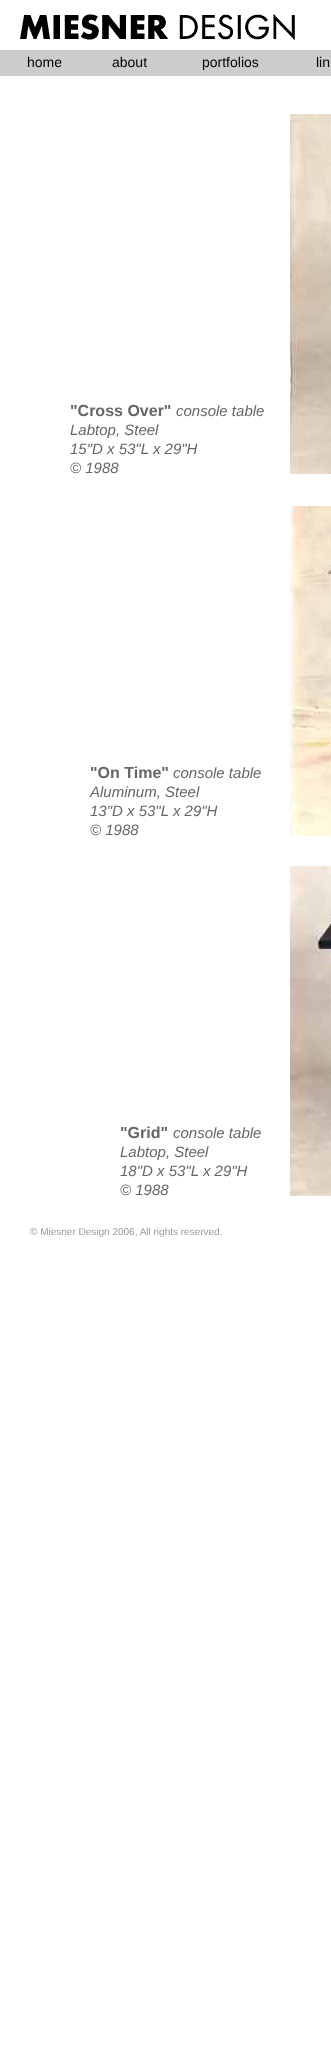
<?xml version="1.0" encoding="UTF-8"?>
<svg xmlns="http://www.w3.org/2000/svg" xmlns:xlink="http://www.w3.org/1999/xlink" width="331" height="2070">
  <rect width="100%" height="100%" fill="#ffffff" />
  <image x="20" y="14" width="275" height="26" xlink:href="image1.png" />
  <rect y="50" width="331" height="26" fill="#cccccc" />
  <image x="290" y="114" width="41" height="360" xlink:href="image2.png" />
  <image x="290" y="506" width="41" height="330" xlink:href="image3.png" />
  <image x="290" y="866" width="41" height="330" xlink:href="image4.png" />
  <text x="27" y="67" style="font-family: Liberation Sans; font-size: 14px; fill: #000000">home</text>
  <text x="112" y="67" style="font-family: Liberation Sans; font-size: 14px; fill: #000000">about</text>
  <text x="202" y="67" style="font-family: Liberation Sans; font-size: 14px; fill: #000000">portfolios</text>
  <text x="316" y="67" style="font-family: Liberation Sans; font-size: 14px; fill: #000000">lin</text>
  <text x="70" y="416" style="font-family: Liberation Sans; font-size: 16px; font-weight: bold; fill: #666666">"Cross Over"</text>
  <text x="176" y="416" style="font-family: Liberation Sans; font-size: 15px; font-style: italic; fill: #666666">console table</text>
  <text x="70" y="435" style="font-family: Liberation Sans; font-size: 15px; font-style: italic; fill: #666666">Labtop, Steel</text>
  <text x="70" y="454" style="font-family: Liberation Sans; font-size: 15px; font-style: italic; fill: #666666">15"D x 53"L x 29"H</text>
  <text x="70" y="473" style="font-family: Liberation Sans; font-size: 15px; font-style: italic; fill: #666666">© 1988</text>
  <text x="90" y="778" style="font-family: Liberation Sans; font-size: 16px; font-weight: bold; fill: #666666">"On Time"</text>
  <text x="173" y="778" style="font-family: Liberation Sans; font-size: 15px; font-style: italic; fill: #666666">console table</text>
  <text x="90" y="797" style="font-family: Liberation Sans; font-size: 15px; font-style: italic; fill: #666666">Aluminum, Steel</text>
  <text x="90" y="816" style="font-family: Liberation Sans; font-size: 15px; font-style: italic; fill: #666666">13"D x 53"L x 29"H</text>
  <text x="90" y="835" style="font-family: Liberation Sans; font-size: 15px; font-style: italic; fill: #666666">© 1988</text>
  <text x="120" y="1138" style="font-family: Liberation Sans; font-size: 16px; font-weight: bold; fill: #666666">"Grid"</text>
  <text x="173" y="1138" style="font-family: Liberation Sans; font-size: 15px; font-style: italic; fill: #666666">console table</text>
  <text x="120" y="1157" style="font-family: Liberation Sans; font-size: 15px; font-style: italic; fill: #666666">Labtop, Steel</text>
  <text x="120" y="1176" style="font-family: Liberation Sans; font-size: 15px; font-style: italic; fill: #666666">18"D x 53"L x 29"H</text>
  <text x="120" y="1195" style="font-family: Liberation Sans; font-size: 15px; font-style: italic; fill: #666666">© 1988</text>
  <text x="30" y="1235" style="font-family: Liberation Sans; font-size: 10px; fill: #999999">© Miesner Design 2006, All rights reserved.</text>
</svg>
